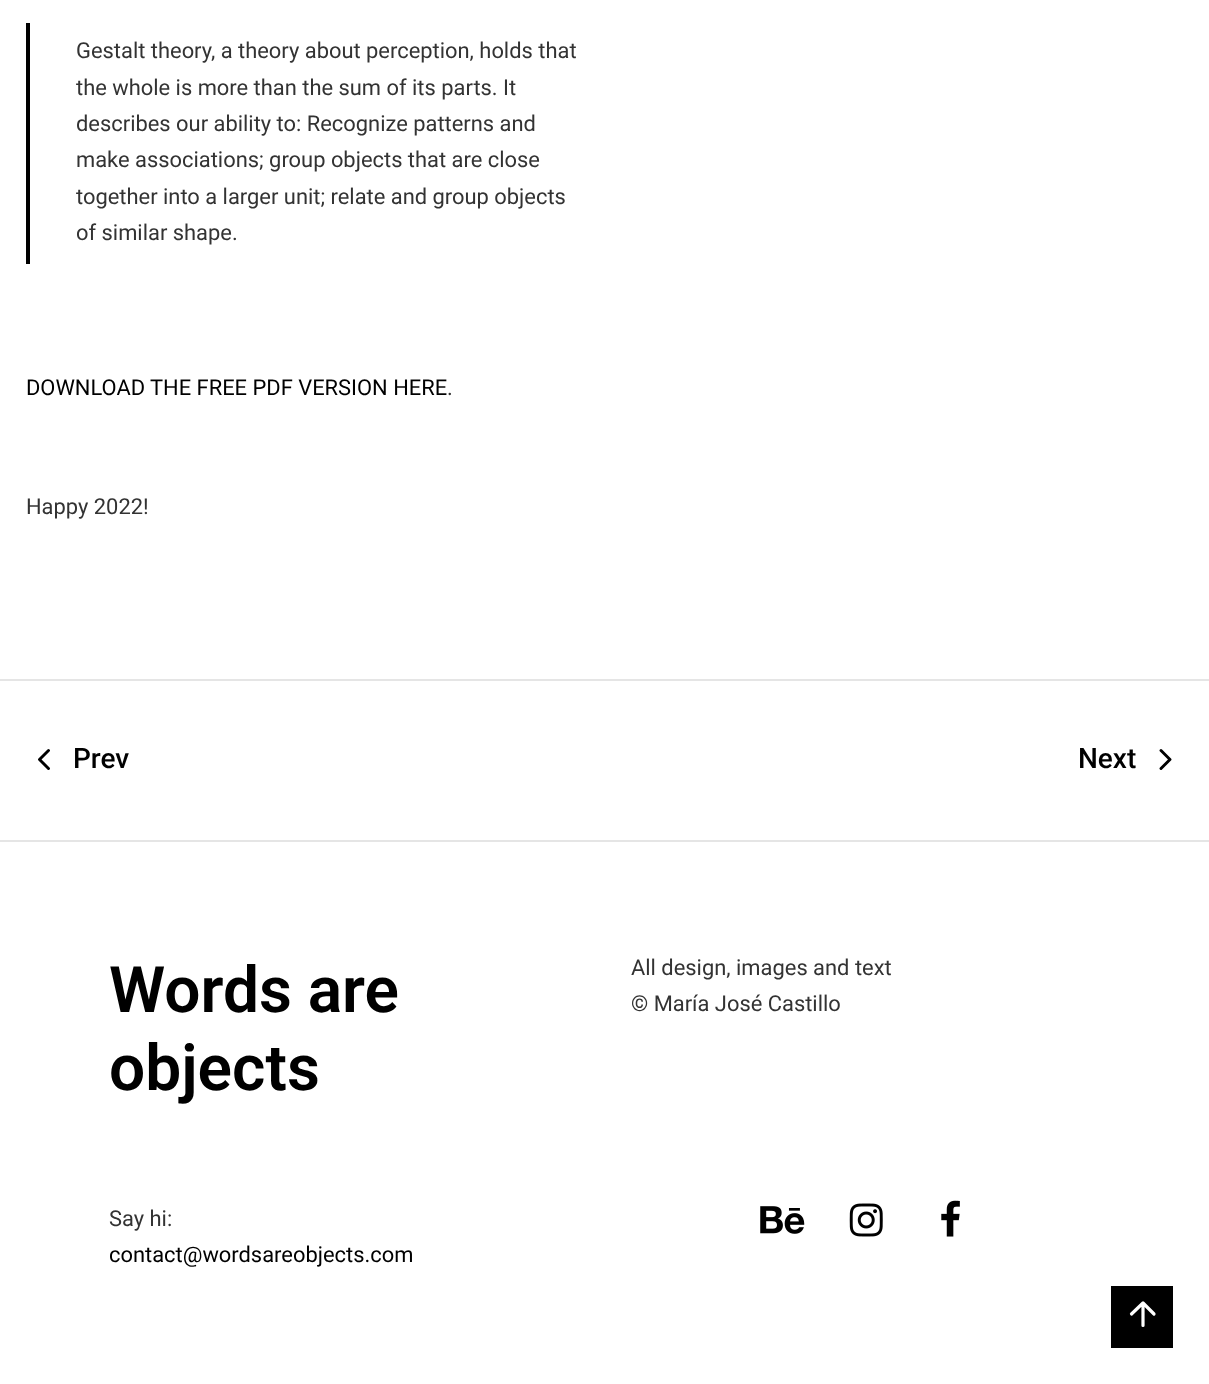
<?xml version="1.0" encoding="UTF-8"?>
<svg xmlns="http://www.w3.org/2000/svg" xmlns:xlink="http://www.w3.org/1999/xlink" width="1209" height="1384">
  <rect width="100%" height="100%" fill="#ffffff" />
  <rect x="26" y="23" width="4" height="241" fill="#000000" />
  <rect y="679" width="1209" height="2" fill="#e5e5e5" />
  <path d="M 48.5 768.5 l -9 -9 l 9 -9" fill="none" stroke="#000000" stroke-width="2.9" stroke-linecap="round" stroke-linejoin="round" />
  <path d="M 1161 768.5 l 9 -9 l -9 -9" fill="none" stroke="#000000" stroke-width="2.9" stroke-linecap="round" stroke-linejoin="round" />
  <rect y="840" width="1209" height="2" fill="#e5e5e5" />
  <image x="760" y="1206" width="45" height="28" xlink:href="image1.png" />
  <image x="849" y="1203" width="34" height="34" xlink:href="image2.png" />
  <image x="941" y="1200" width="19" height="37" xlink:href="image3.png" />
  <rect x="1111" y="1286" width="62" height="62" fill="#000000" />
  <path d="M 1143 1325.5 v -22.5 m -11.5 11 l 11.5 -11 l 11 11" fill="none" stroke="#ffffff" stroke-width="3.2" stroke-linecap="round" stroke-linejoin="round" />
  <text x="76" y="58" style="font-family: Roboto; font-size: 21.9px; fill: #333333">Gestalt theory, a theory about perception, holds that</text>
  <text x="76" y="95" style="font-family: Roboto; font-size: 21.9px; fill: #333333">the whole is more than the sum of its parts. It</text>
  <text x="76" y="131" style="font-family: Roboto; font-size: 21.9px; fill: #333333">describes our ability to: Recognize patterns and</text>
  <text x="76" y="167" style="font-family: Roboto; font-size: 21.9px; fill: #333333">make associations; group objects that are close</text>
  <text x="76" y="204" style="font-family: Roboto; font-size: 21.9px; fill: #333333">together into a larger unit; relate and group objects</text>
  <text x="76" y="240" style="font-family: Roboto; font-size: 21.9px; fill: #333333">of similar shape.</text>
  <text x="26" y="395" style="font-family: Roboto; font-size: 21.9px; fill: #000000">DOWNLOAD THE FREE PDF VERSION HERE</text>
  <text x="447" y="395" style="font-family: Roboto; font-size: 21.9px; fill: #333333">.</text>
  <text x="26" y="514" style="font-family: Roboto; font-size: 21.9px; fill: #333333">Happy 2022!</text>
  <text x="73" y="768" style="font-family: Roboto; font-size: 28px; font-weight: 500; fill: #000000">Prev</text>
  <text x="1078" y="768" style="font-family: Roboto; font-size: 28px; font-weight: 500; fill: #000000">Next</text>
  <text x="109" y="1012" style="font-family: Roboto; font-size: 64px; font-weight: 600; fill: #000000">Words are</text>
  <text x="109" y="1090" style="font-family: Roboto; font-size: 64px; font-weight: 600; fill: #000000">objects</text>
  <text x="631" y="975" style="font-family: Roboto; font-size: 21.9px; fill: #333333">All design, images and text</text>
  <text x="631" y="1011" style="font-family: Roboto; font-size: 21.9px; fill: #333333">© María José Castillo</text>
  <text x="109" y="1226" style="font-family: Roboto; font-size: 21.9px; fill: #333333">Say hi:</text>
  <text x="109" y="1262" style="font-family: Roboto; font-size: 21.9px; fill: #000000">contact@wordsareobjects.com</text>
</svg>
